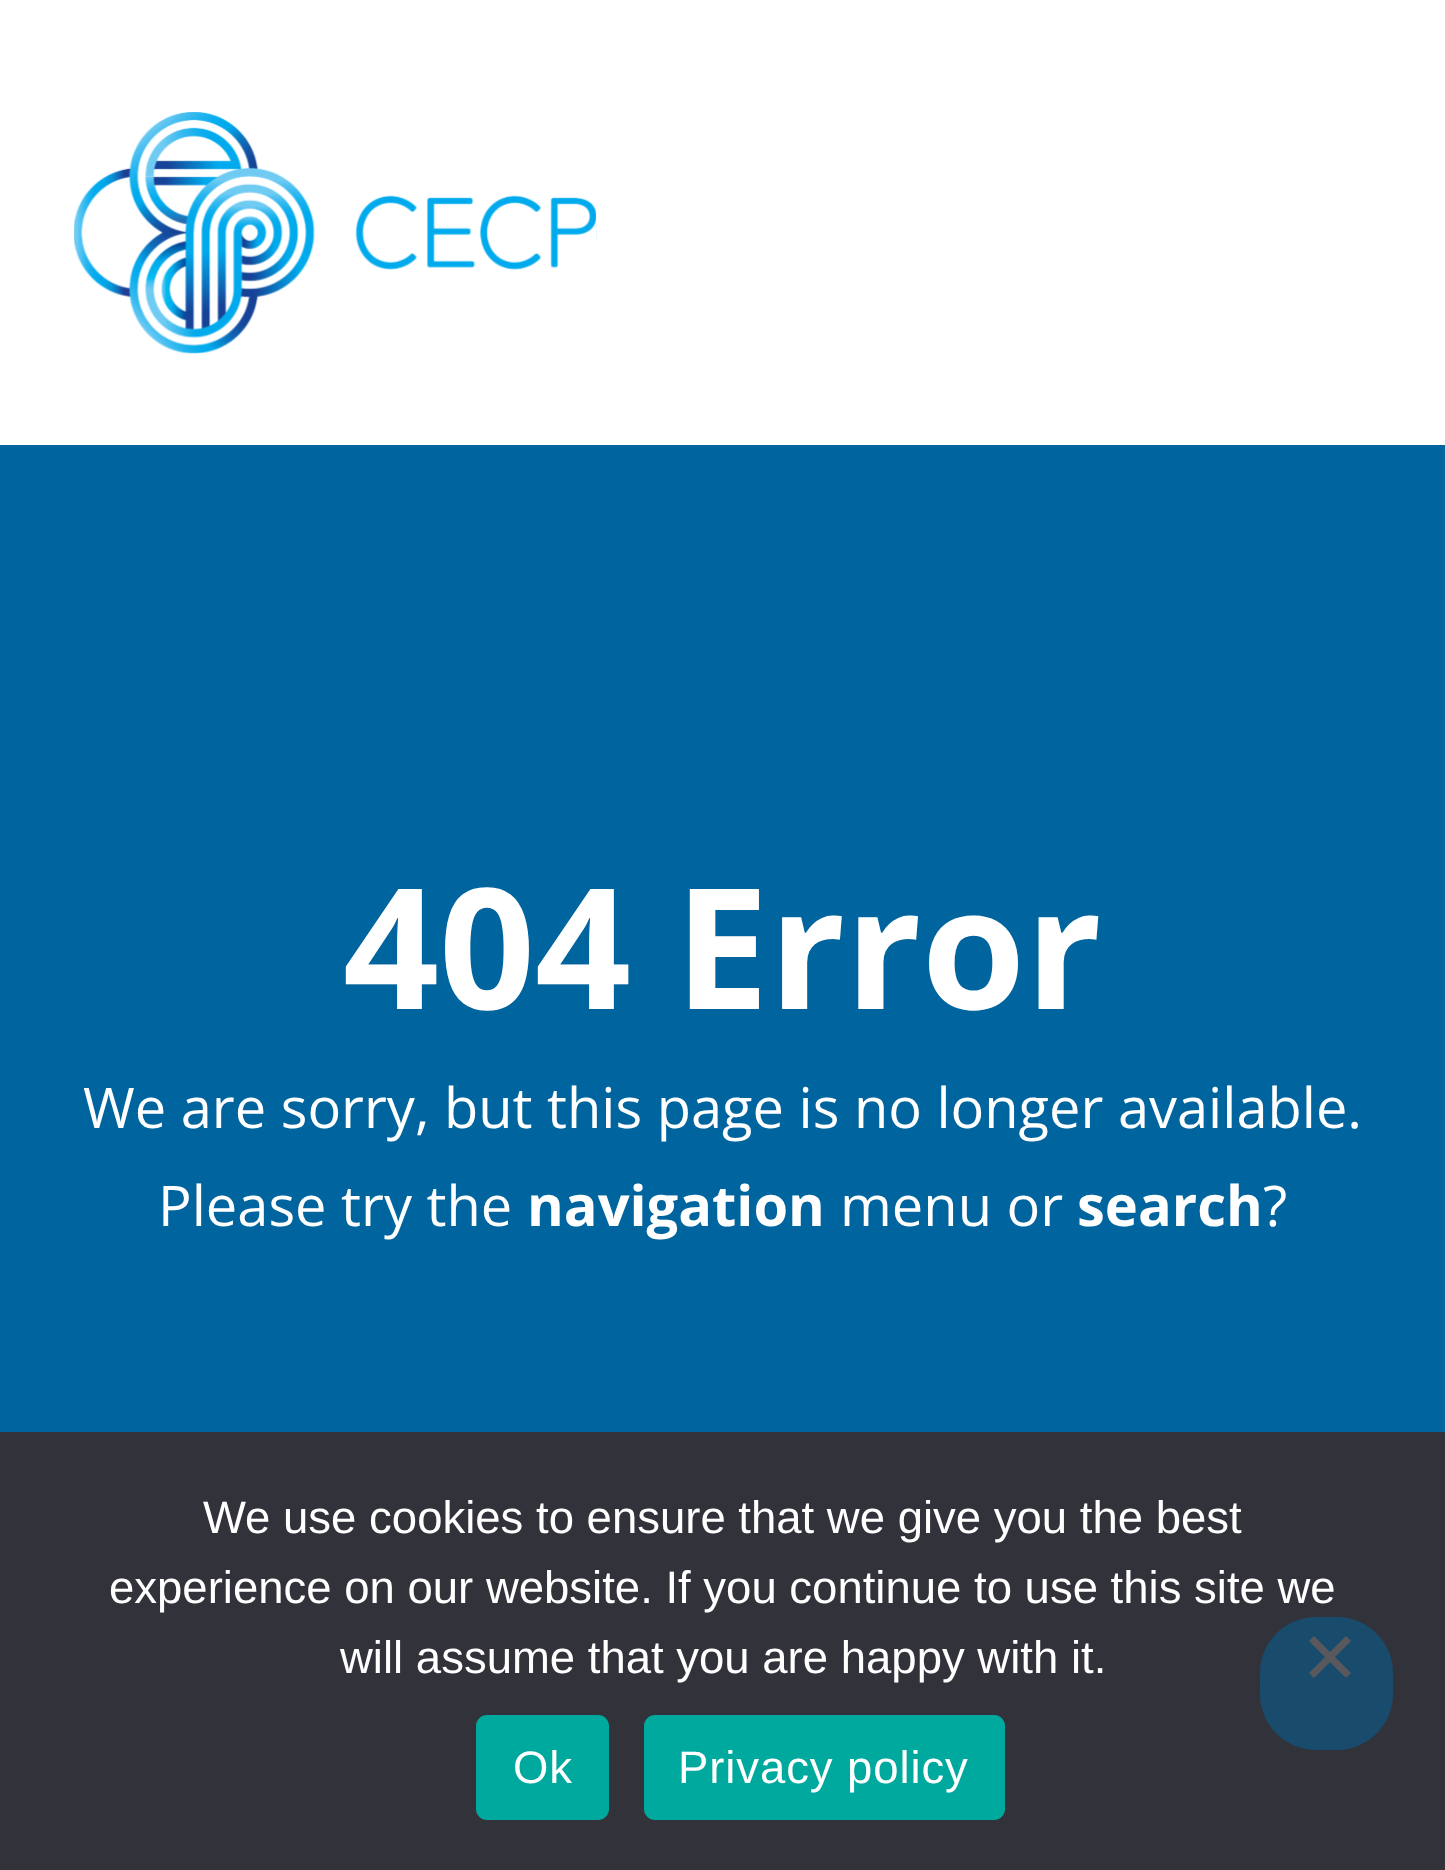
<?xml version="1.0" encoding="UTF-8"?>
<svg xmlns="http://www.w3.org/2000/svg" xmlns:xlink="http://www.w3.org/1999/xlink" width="1445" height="1870">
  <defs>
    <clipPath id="clip1"><path d="M 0 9 h 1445 v 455 h -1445 z m 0 -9 h 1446 v 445 h -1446 z" clip-rule="evenodd" /></clipPath>
  </defs>
  <rect width="100%" height="100%" fill="#ffffff" />
  <g clip-path="url(#clip1)">
    <rect x="7" y="21" width="1432" height="431" fill="#f2f2f2" filter="blur(3.5px)" />
  </g>
  <image x="74" y="112" width="523" height="242" xlink:href="image1.png" />
  <rect y="445" width="1445" height="987" fill="#00649e" />
  <rect y="1432" width="1445" height="438" fill="#32323a" />
  <rect x="1260" y="1617" width="133" height="133" rx="56" fill="#194b6c" />
  <path d="M 1346 1636 l 5 5 l -37 37 l -5 -5 z" fill="#59595d" />
  <path d="M 1309 1641 l 5 -5 l 37 37 l -5 5 z" fill="#59595d" />
  <rect x="476" y="1715" width="133" height="105" rx="11" fill="#00a99d" />
  <rect x="644" y="1715" width="361" height="105" rx="11" fill="#00a99d" />
  <text x="343" y="1009" style="font-family: Open Sans; font-size: 168px; font-weight: bold; fill: #ffffff">404 Error</text>
  <text x="83" y="1128" style="font-family: Open Sans; font-size: 56px; fill: #ffffff">We are sorry, but this page is no longer available.</text>
  <text x="158" y="1226" style="font-family: Open Sans; font-size: 56px; fill: #ffffff">Please try the</text>
  <text x="527" y="1226" style="font-family: Open Sans; font-size: 56px; font-weight: bold; fill: #ffffff">navigation</text>
  <text x="840" y="1226" style="font-family: Open Sans; font-size: 56px; fill: #ffffff">menu or</text>
  <text x="1077" y="1226" style="font-family: Open Sans; font-size: 56px; font-weight: bold; fill: #ffffff">search</text>
  <text x="1263" y="1226" style="font-family: Open Sans; font-size: 56px; fill: #ffffff">?</text>
  <text x="203" y="1533" style="font-family: Liberation Sans; font-size: 45.5px; fill: #ffffff">We use cookies to ensure that we give you the best</text>
  <text x="109" y="1603" style="font-family: Liberation Sans; font-size: 45.5px; fill: #ffffff">experience on our website. If you continue to use this site we</text>
  <text x="340" y="1673" style="font-family: Liberation Sans; font-size: 45.5px; fill: #ffffff">will assume that you are happy with it.</text>
  <text x="513" y="1783" style="font-family: Liberation Sans; font-size: 45.5px; letter-spacing: 0.9px; fill: #ffffff">Ok</text>
  <text x="678" y="1783" style="font-family: Liberation Sans; font-size: 45.5px; letter-spacing: 0.9px; fill: #ffffff">Privacy policy</text>
</svg>
